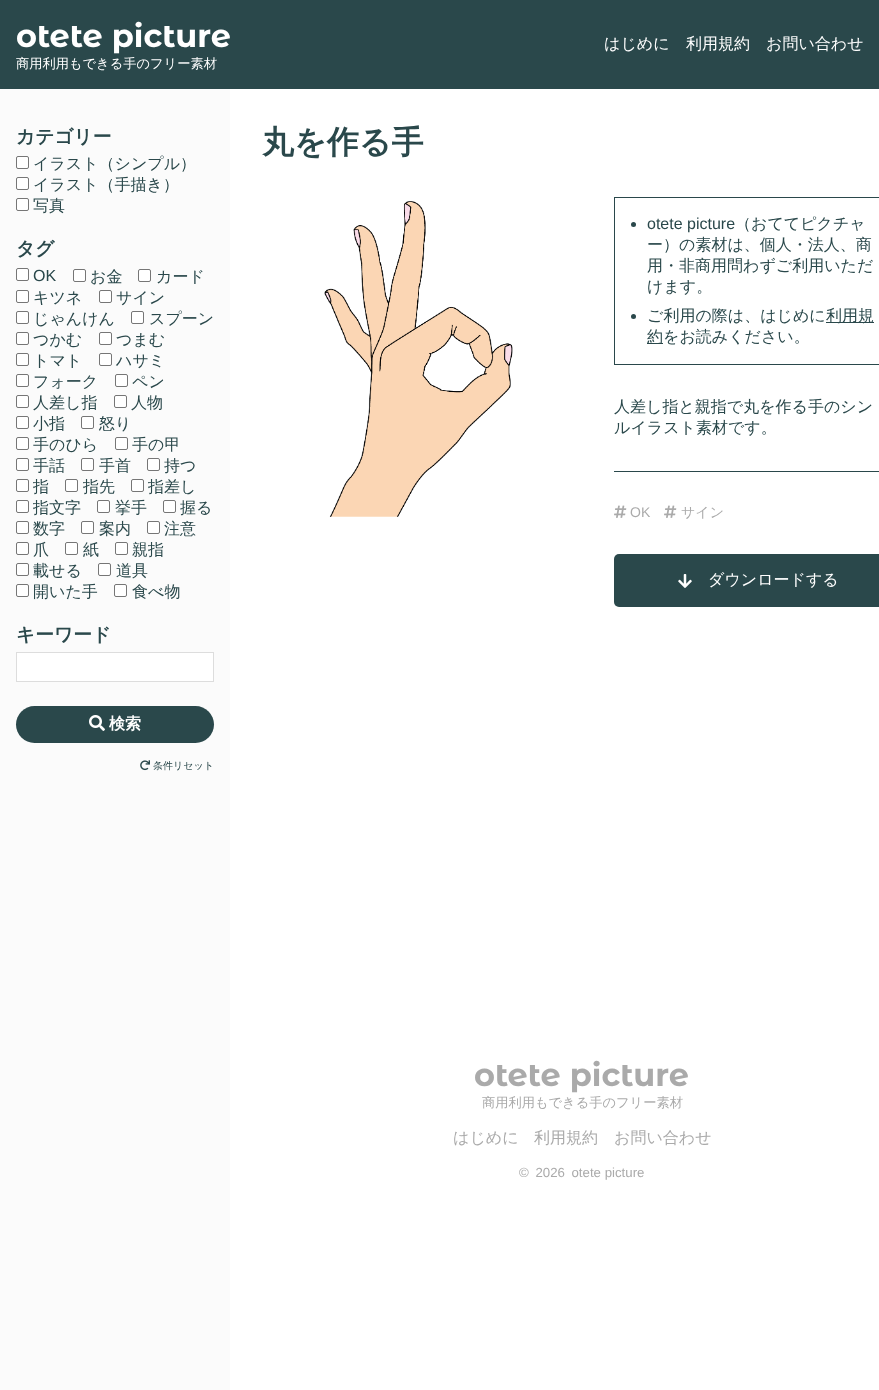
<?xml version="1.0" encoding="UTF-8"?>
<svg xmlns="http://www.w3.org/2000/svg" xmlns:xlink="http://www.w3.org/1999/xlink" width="879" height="1390">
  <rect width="100%" height="100%" fill="#ffffff" />
  <rect width="879" height="89" fill="#2a484b" />
  <rect y="89" width="230" height="1301" fill="#fbfbfb" />
  <rect x="16.5" y="156.5" width="12" height="12" rx="1.5" fill="#ffffff" stroke="#767676" />
  <rect x="16.5" y="177.5" width="12" height="12" rx="1.5" fill="#ffffff" stroke="#767676" />
  <rect x="16.5" y="198.5" width="12" height="12" rx="1.5" fill="#ffffff" stroke="#767676" />
  <rect x="16.5" y="268.5" width="12" height="12" rx="1.5" fill="#ffffff" stroke="#767676" />
  <rect x="73.5" y="269.5" width="12" height="12" rx="1.5" fill="#ffffff" stroke="#767676" />
  <rect x="138.5" y="269.5" width="12" height="12" rx="1.5" fill="#ffffff" stroke="#767676" />
  <rect x="16.5" y="290.5" width="12" height="12" rx="1.5" fill="#ffffff" stroke="#767676" />
  <rect x="99.5" y="290.5" width="12" height="12" rx="1.5" fill="#ffffff" stroke="#767676" />
  <rect x="16.5" y="311.5" width="12" height="12" rx="1.5" fill="#ffffff" stroke="#767676" />
  <rect x="131.5" y="311.5" width="12" height="12" rx="1.5" fill="#ffffff" stroke="#767676" />
  <rect x="16.5" y="332.5" width="12" height="12" rx="1.5" fill="#ffffff" stroke="#767676" />
  <rect x="99.5" y="332.5" width="12" height="12" rx="1.5" fill="#ffffff" stroke="#767676" />
  <rect x="16.5" y="353.5" width="12" height="12" rx="1.5" fill="#ffffff" stroke="#767676" />
  <rect x="99.5" y="353.5" width="12" height="12" rx="1.5" fill="#ffffff" stroke="#767676" />
  <rect x="16.5" y="374.5" width="12" height="12" rx="1.5" fill="#ffffff" stroke="#767676" />
  <rect x="115.5" y="374.5" width="12" height="12" rx="1.5" fill="#ffffff" stroke="#767676" />
  <rect x="16.5" y="395.5" width="12" height="12" rx="1.5" fill="#ffffff" stroke="#767676" />
  <rect x="114.5" y="395.5" width="12" height="12" rx="1.5" fill="#ffffff" stroke="#767676" />
  <rect x="16.5" y="416.5" width="12" height="12" rx="1.5" fill="#ffffff" stroke="#767676" />
  <rect x="81.5" y="416.5" width="12" height="12" rx="1.5" fill="#ffffff" stroke="#767676" />
  <rect x="16.5" y="437.5" width="12" height="12" rx="1.5" fill="#ffffff" stroke="#767676" />
  <rect x="115.5" y="437.5" width="12" height="12" rx="1.5" fill="#ffffff" stroke="#767676" />
  <rect x="16.5" y="458.5" width="12" height="12" rx="1.5" fill="#ffffff" stroke="#767676" />
  <rect x="81.5" y="458.5" width="12" height="12" rx="1.5" fill="#ffffff" stroke="#767676" />
  <rect x="147.5" y="458.5" width="12" height="12" rx="1.5" fill="#ffffff" stroke="#767676" />
  <rect x="16.5" y="479.5" width="12" height="12" rx="1.5" fill="#ffffff" stroke="#767676" />
  <rect x="65.5" y="479.5" width="12" height="12" rx="1.5" fill="#ffffff" stroke="#767676" />
  <rect x="131.5" y="479.5" width="12" height="12" rx="1.5" fill="#ffffff" stroke="#767676" />
  <rect x="16.5" y="500.5" width="12" height="12" rx="1.5" fill="#ffffff" stroke="#767676" />
  <rect x="97.5" y="500.5" width="12" height="12" rx="1.5" fill="#ffffff" stroke="#767676" />
  <rect x="163.5" y="500.5" width="12" height="12" rx="1.5" fill="#ffffff" stroke="#767676" />
  <rect x="16.5" y="521.5" width="12" height="12" rx="1.5" fill="#ffffff" stroke="#767676" />
  <rect x="81.5" y="521.5" width="12" height="12" rx="1.5" fill="#ffffff" stroke="#767676" />
  <rect x="147.5" y="521.5" width="12" height="12" rx="1.5" fill="#ffffff" stroke="#767676" />
  <rect x="16.5" y="542.5" width="12" height="12" rx="1.5" fill="#ffffff" stroke="#767676" />
  <rect x="65.5" y="542.5" width="12" height="12" rx="1.5" fill="#ffffff" stroke="#767676" />
  <rect x="115.5" y="542.5" width="12" height="12" rx="1.5" fill="#ffffff" stroke="#767676" />
  <rect x="16.5" y="563.5" width="12" height="12" rx="1.5" fill="#ffffff" stroke="#767676" />
  <rect x="98.5" y="563.5" width="12" height="12" rx="1.5" fill="#ffffff" stroke="#767676" />
  <rect x="16.5" y="584.5" width="12" height="12" rx="1.5" fill="#ffffff" stroke="#767676" />
  <rect x="114.5" y="584.5" width="12" height="12" rx="1.5" fill="#ffffff" stroke="#767676" />
  <rect x="16.5" y="652.5" width="197" height="29" fill="#ffffff" stroke="#dddddd" />
  <rect x="16" y="706" width="198" height="37" rx="18.5" fill="#2a484b" />
  <image x="89" y="715" width="16" height="16" xlink:href="image1.png" />
  <image x="140" y="760" width="10" height="11" xlink:href="image2.png" />
  <image x="324" y="201" width="189" height="316" xlink:href="image3.png" />
  <rect x="614.5" y="197.5" width="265" height="167" fill="none" stroke="#2a484b" />
  <circle cx="633.5" cy="224.5" r="2.5" fill="#2a484b" />
  <circle cx="633.5" cy="316.5" r="2.5" fill="#2a484b" />
  <rect x="826" y="322" width="48" height="1" fill="#2a484b" />
  <rect x="647" y="343" width="16" height="1" fill="#2a484b" />
  <rect x="614" y="471" width="265" height="1" fill="#2a484b" />
  <image x="614" y="505" width="13" height="13" xlink:href="image4.png" />
  <image x="664" y="505" width="13" height="13" xlink:href="image4.png" />
  <rect x="614" y="554" width="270" height="53" rx="5" fill="#2a484b" />
  <image x="678" y="574" width="14" height="14" xlink:href="image5.png" />
  <text x="16" y="47" style="font-family: Montserrat Alternates; font-size: 32px; font-weight: bold; fill: #ffffff">otete picture</text>
  <text x="16" y="68" style="font-family: WenQuanYi Zen Hei; font-size: 13.25px; font-weight: 500; fill: #ffffff">商用利用もできる手のフリー素材</text>
  <text x="604" y="49" style="font-family: WenQuanYi Zen Hei; font-size: 16px; font-weight: 500; fill: #ffffff">はじめに</text>
  <text x="686" y="49" style="font-family: WenQuanYi Zen Hei; font-size: 16px; font-weight: 500; fill: #ffffff">利用規約</text>
  <text x="766" y="49" style="font-family: WenQuanYi Zen Hei; font-size: 16px; font-weight: 500; fill: #ffffff">お問い合わせ</text>
  <text x="16" y="143" style="font-family: WenQuanYi Zen Hei; font-size: 18.75px; font-weight: bold; fill: #2a484b">カテゴリー</text>
  <text x="33" y="169" style="font-family: WenQuanYi Zen Hei; font-size: 16px; font-weight: 500; fill: #2a484b">イラスト（シンプル）</text>
  <text x="33" y="190" style="font-family: WenQuanYi Zen Hei; font-size: 16px; font-weight: 500; fill: #2a484b">イラスト（手描き）</text>
  <text x="33" y="211" style="font-family: WenQuanYi Zen Hei; font-size: 16px; font-weight: 500; fill: #2a484b">写真</text>
  <text x="16" y="255" style="font-family: WenQuanYi Zen Hei; font-size: 18.75px; font-weight: bold; fill: #2a484b">タグ</text>
  <text x="33" y="281" style="font-family: Liberation Sans; font-size: 16px; fill: #2a484b">OK</text>
  <text x="90" y="282" style="font-family: WenQuanYi Zen Hei; font-size: 16px; font-weight: 500; fill: #2a484b">お金</text>
  <text x="156" y="282" style="font-family: WenQuanYi Zen Hei; font-size: 16px; font-weight: 500; fill: #2a484b">カード</text>
  <text x="33" y="303" style="font-family: WenQuanYi Zen Hei; font-size: 16px; font-weight: 500; fill: #2a484b">キツネ</text>
  <text x="116" y="303" style="font-family: WenQuanYi Zen Hei; font-size: 16px; font-weight: 500; fill: #2a484b">サイン</text>
  <text x="33" y="324" style="font-family: WenQuanYi Zen Hei; font-size: 16px; font-weight: 500; fill: #2a484b">じゃんけん</text>
  <text x="149" y="324" style="font-family: WenQuanYi Zen Hei; font-size: 16px; font-weight: 500; fill: #2a484b">スプーン</text>
  <text x="33" y="345" style="font-family: WenQuanYi Zen Hei; font-size: 16px; font-weight: 500; fill: #2a484b">つかむ</text>
  <text x="116" y="345" style="font-family: WenQuanYi Zen Hei; font-size: 16px; font-weight: 500; fill: #2a484b">つまむ</text>
  <text x="33" y="366" style="font-family: WenQuanYi Zen Hei; font-size: 16px; font-weight: 500; fill: #2a484b">トマト</text>
  <text x="116" y="366" style="font-family: WenQuanYi Zen Hei; font-size: 16px; font-weight: 500; fill: #2a484b">ハサミ</text>
  <text x="33" y="387" style="font-family: WenQuanYi Zen Hei; font-size: 16px; font-weight: 500; fill: #2a484b">フォーク</text>
  <text x="132" y="387" style="font-family: WenQuanYi Zen Hei; font-size: 16px; font-weight: 500; fill: #2a484b">ペン</text>
  <text x="33" y="408" style="font-family: WenQuanYi Zen Hei; font-size: 16px; font-weight: 500; fill: #2a484b">人差し指</text>
  <text x="131" y="408" style="font-family: WenQuanYi Zen Hei; font-size: 16px; font-weight: 500; fill: #2a484b">人物</text>
  <text x="33" y="429" style="font-family: WenQuanYi Zen Hei; font-size: 16px; font-weight: 500; fill: #2a484b">小指</text>
  <text x="99" y="429" style="font-family: WenQuanYi Zen Hei; font-size: 16px; font-weight: 500; fill: #2a484b">怒り</text>
  <text x="33" y="450" style="font-family: WenQuanYi Zen Hei; font-size: 16px; font-weight: 500; fill: #2a484b">手のひら</text>
  <text x="132" y="450" style="font-family: WenQuanYi Zen Hei; font-size: 16px; font-weight: 500; fill: #2a484b">手の甲</text>
  <text x="33" y="471" style="font-family: WenQuanYi Zen Hei; font-size: 16px; font-weight: 500; fill: #2a484b">手話</text>
  <text x="99" y="471" style="font-family: WenQuanYi Zen Hei; font-size: 16px; font-weight: 500; fill: #2a484b">手首</text>
  <text x="164" y="471" style="font-family: WenQuanYi Zen Hei; font-size: 16px; font-weight: 500; fill: #2a484b">持つ</text>
  <text x="33" y="492" style="font-family: WenQuanYi Zen Hei; font-size: 16px; font-weight: 500; fill: #2a484b">指</text>
  <text x="83" y="492" style="font-family: WenQuanYi Zen Hei; font-size: 16px; font-weight: 500; fill: #2a484b">指先</text>
  <text x="148" y="492" style="font-family: WenQuanYi Zen Hei; font-size: 16px; font-weight: 500; fill: #2a484b">指差し</text>
  <text x="33" y="513" style="font-family: WenQuanYi Zen Hei; font-size: 16px; font-weight: 500; fill: #2a484b">指文字</text>
  <text x="115" y="513" style="font-family: WenQuanYi Zen Hei; font-size: 16px; font-weight: 500; fill: #2a484b">挙手</text>
  <text x="180" y="513" style="font-family: WenQuanYi Zen Hei; font-size: 16px; font-weight: 500; fill: #2a484b">握る</text>
  <text x="33" y="534" style="font-family: WenQuanYi Zen Hei; font-size: 16px; font-weight: 500; fill: #2a484b">数字</text>
  <text x="99" y="534" style="font-family: WenQuanYi Zen Hei; font-size: 16px; font-weight: 500; fill: #2a484b">案内</text>
  <text x="164" y="534" style="font-family: WenQuanYi Zen Hei; font-size: 16px; font-weight: 500; fill: #2a484b">注意</text>
  <text x="33" y="555" style="font-family: WenQuanYi Zen Hei; font-size: 16px; font-weight: 500; fill: #2a484b">爪</text>
  <text x="83" y="555" style="font-family: WenQuanYi Zen Hei; font-size: 16px; font-weight: 500; fill: #2a484b">紙</text>
  <text x="132" y="555" style="font-family: WenQuanYi Zen Hei; font-size: 16px; font-weight: 500; fill: #2a484b">親指</text>
  <text x="33" y="576" style="font-family: WenQuanYi Zen Hei; font-size: 16px; font-weight: 500; fill: #2a484b">載せる</text>
  <text x="116" y="576" style="font-family: WenQuanYi Zen Hei; font-size: 16px; font-weight: 500; fill: #2a484b">道具</text>
  <text x="33" y="597" style="font-family: WenQuanYi Zen Hei; font-size: 16px; font-weight: 500; fill: #2a484b">開いた手</text>
  <text x="132" y="597" style="font-family: WenQuanYi Zen Hei; font-size: 16px; font-weight: 500; fill: #2a484b">食べ物</text>
  <text x="16" y="641" style="font-family: WenQuanYi Zen Hei; font-size: 18.75px; font-weight: bold; fill: #2a484b">キーワード</text>
  <text x="109" y="729" style="font-family: WenQuanYi Zen Hei; font-size: 16px; font-weight: bold; fill: #ffffff">検索</text>
  <text x="153" y="769" style="font-family: WenQuanYi Zen Hei; font-size: 10px; font-weight: 500; fill: #2a484b">条件リセット</text>
  <text x="262" y="153" style="font-family: WenQuanYi Zen Hei; font-size: 32px; font-weight: bold; fill: #2a484b">丸を作る手</text>
  <text x="647" y="229" style="font-family: Liberation Sans; font-size: 16px; fill: #2a484b">otete picture</text>
  <text x="735" y="229" style="font-family: WenQuanYi Zen Hei; font-size: 16px; font-weight: 500; fill: #2a484b">（おててピクチャ</text>
  <text x="647" y="250" style="font-family: WenQuanYi Zen Hei; font-size: 16px; font-weight: 500; fill: #2a484b">ー）の素材は、個人・法人、商</text>
  <text x="647" y="271" style="font-family: WenQuanYi Zen Hei; font-size: 16px; font-weight: 500; fill: #2a484b">用・非商用問わずご利用いただ</text>
  <text x="647" y="292" style="font-family: WenQuanYi Zen Hei; font-size: 16px; font-weight: 500; fill: #2a484b">けます。</text>
  <text x="647" y="321" style="font-family: WenQuanYi Zen Hei; font-size: 16px; font-weight: 500; fill: #2a484b">ご利用の際は、はじめに</text>
  <text x="826" y="321" style="font-family: WenQuanYi Zen Hei; font-size: 16px; font-weight: 500; fill: #2a484b">利用規</text>
  <text x="647" y="342" style="font-family: WenQuanYi Zen Hei; font-size: 16px; font-weight: 500; fill: #2a484b">約をお読みください。</text>
  <text x="614" y="412" style="font-family: WenQuanYi Zen Hei; font-size: 16px; font-weight: 500; fill: #2a484b">人差し指と親指で丸を作る手のシン</text>
  <text x="614" y="433" style="font-family: WenQuanYi Zen Hei; font-size: 16px; font-weight: 500; fill: #2a484b">ルイラスト素材です。</text>
  <text x="630" y="517" style="font-family: Liberation Sans; font-size: 14px; fill: #aaaaaa">OK</text>
  <text x="681" y="517" style="font-family: WenQuanYi Zen Hei; font-size: 14px; font-weight: 500; fill: #aaaaaa">サイン</text>
  <text x="708" y="585" style="font-family: WenQuanYi Zen Hei; font-size: 16px; font-weight: 500; fill: #ffffff">ダウンロードする</text>
  <text x="474" y="1086" style="font-family: Montserrat Alternates; font-size: 32px; font-weight: bold; fill: #aaaaaa">otete picture</text>
  <text x="482" y="1107" style="font-family: WenQuanYi Zen Hei; font-size: 13.25px; font-weight: 500; fill: #aaaaaa">商用利用もできる手のフリー素材</text>
  <text x="453" y="1143" style="font-family: WenQuanYi Zen Hei; font-size: 16px; font-weight: 500; fill: #aaaaaa">はじめに</text>
  <text x="534" y="1143" style="font-family: WenQuanYi Zen Hei; font-size: 16px; font-weight: 500; fill: #aaaaaa">利用規約</text>
  <text x="614" y="1143" style="font-family: WenQuanYi Zen Hei; font-size: 16px; font-weight: 500; fill: #aaaaaa">お問い合わせ</text>
  <text x="519" y="1177" style="font-family: Liberation Sans; font-size: 13.25px; fill: #aaaaaa">© 2026 otete picture</text>
</svg>
